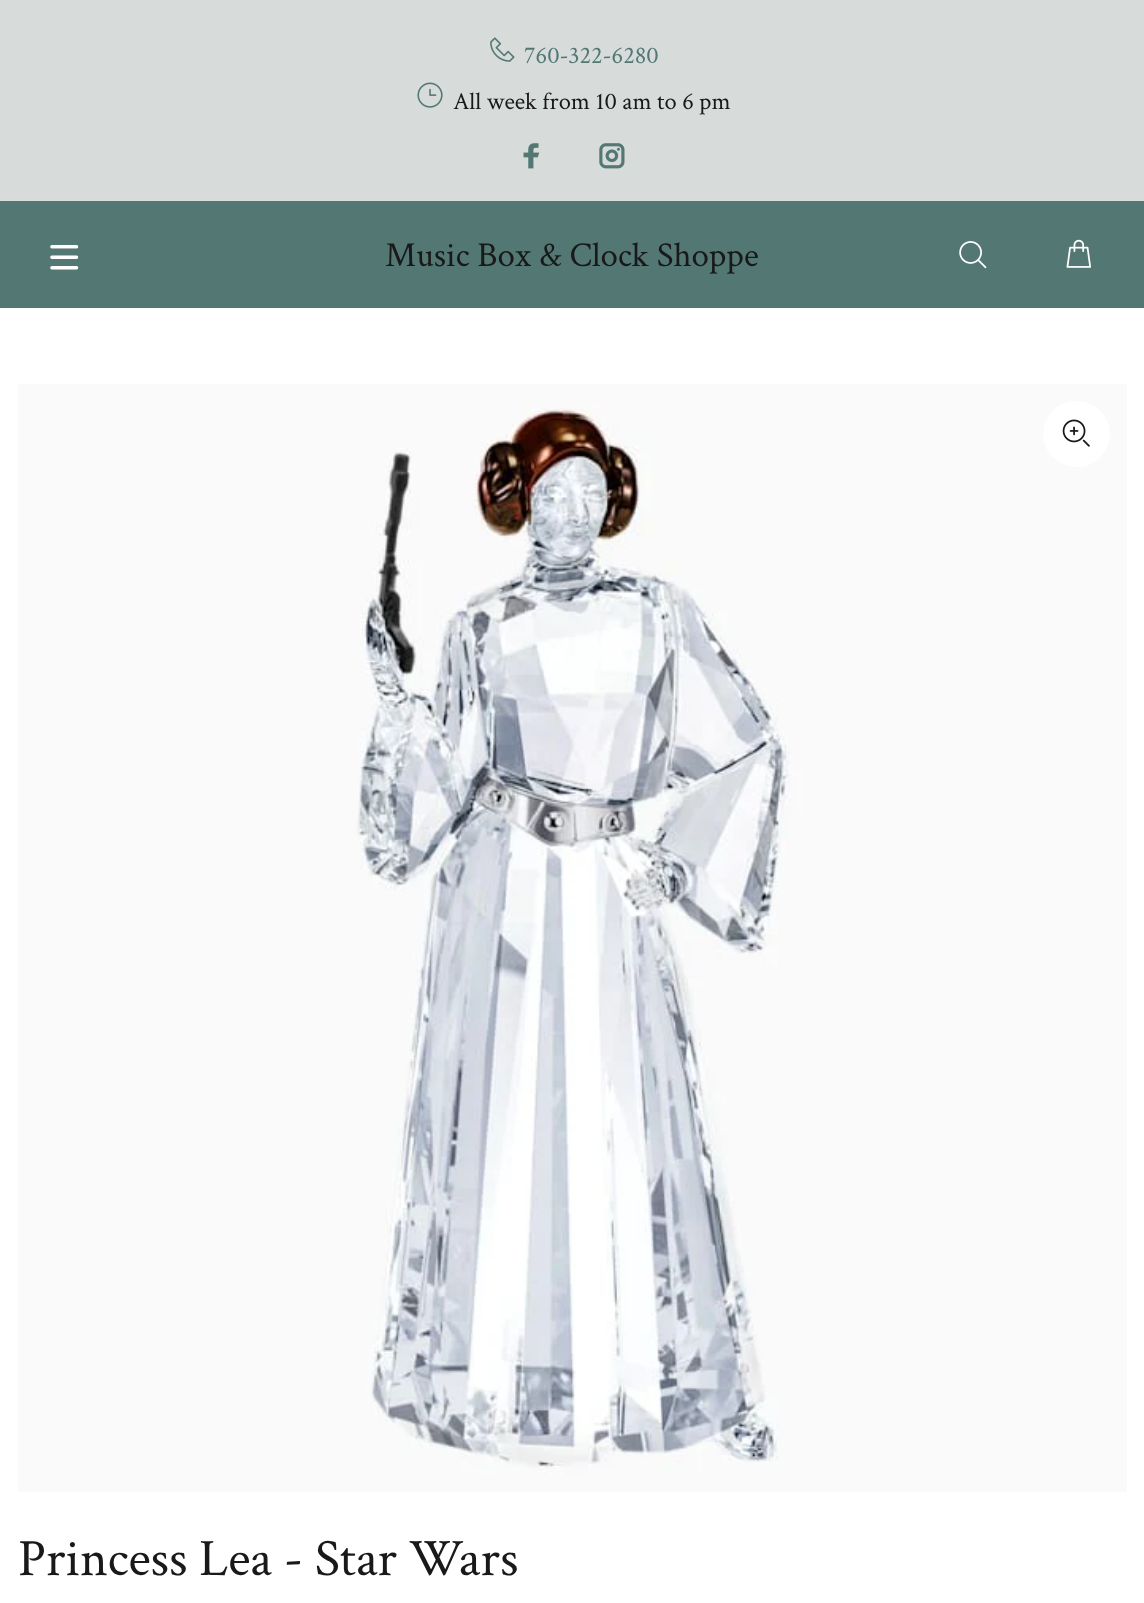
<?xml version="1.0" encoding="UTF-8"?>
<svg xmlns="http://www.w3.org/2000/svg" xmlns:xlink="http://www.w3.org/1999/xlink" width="1144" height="1603">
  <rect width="100%" height="100%" fill="#ffffff" />
  <rect y="201" width="1144" height="107" fill="#537874" />
  <rect width="1144" height="201" fill="#d7dbda" />
  <image x="490" y="37" width="25" height="25" xlink:href="image1.png" />
  <image x="417" y="82" width="26" height="26" xlink:href="image2.png" />
  <image x="523" y="143" width="17" height="26" xlink:href="image3.png" />
  <image x="599" y="143" width="26" height="26" xlink:href="image4.png" />
  <image x="50" y="245" width="29" height="25" xlink:href="image5.png" />
  <image x="959" y="241" width="28" height="28" xlink:href="image6.png" />
  <image x="1066" y="239" width="25" height="29" xlink:href="image7.png" />
  <image x="18" y="384" width="1109" height="1108" xlink:href="image8.png" />
  <rect x="1043" y="401" width="67" height="66" rx="33" fill="#ffffff" />
  <image x="1062" y="419" width="28" height="28" xlink:href="image9.png" />
  <text x="524" y="63" style="font-family: Crimson Text; font-size: 24.5px; fill: #537874">760-322-6280</text>
  <text x="453" y="109" style="font-family: Crimson Text; font-size: 24.5px; fill: #191919">All week from 10 am to 6 pm</text>
  <text x="385" y="266" style="font-family: Crimson Text; font-size: 35px; fill: #191919">Music Box &amp; Clock Shoppe</text>
  <text x="18" y="1575" style="font-family: Crimson Text; font-size: 52.5px; fill: #191919">Princess Lea - Star Wars</text>
</svg>
